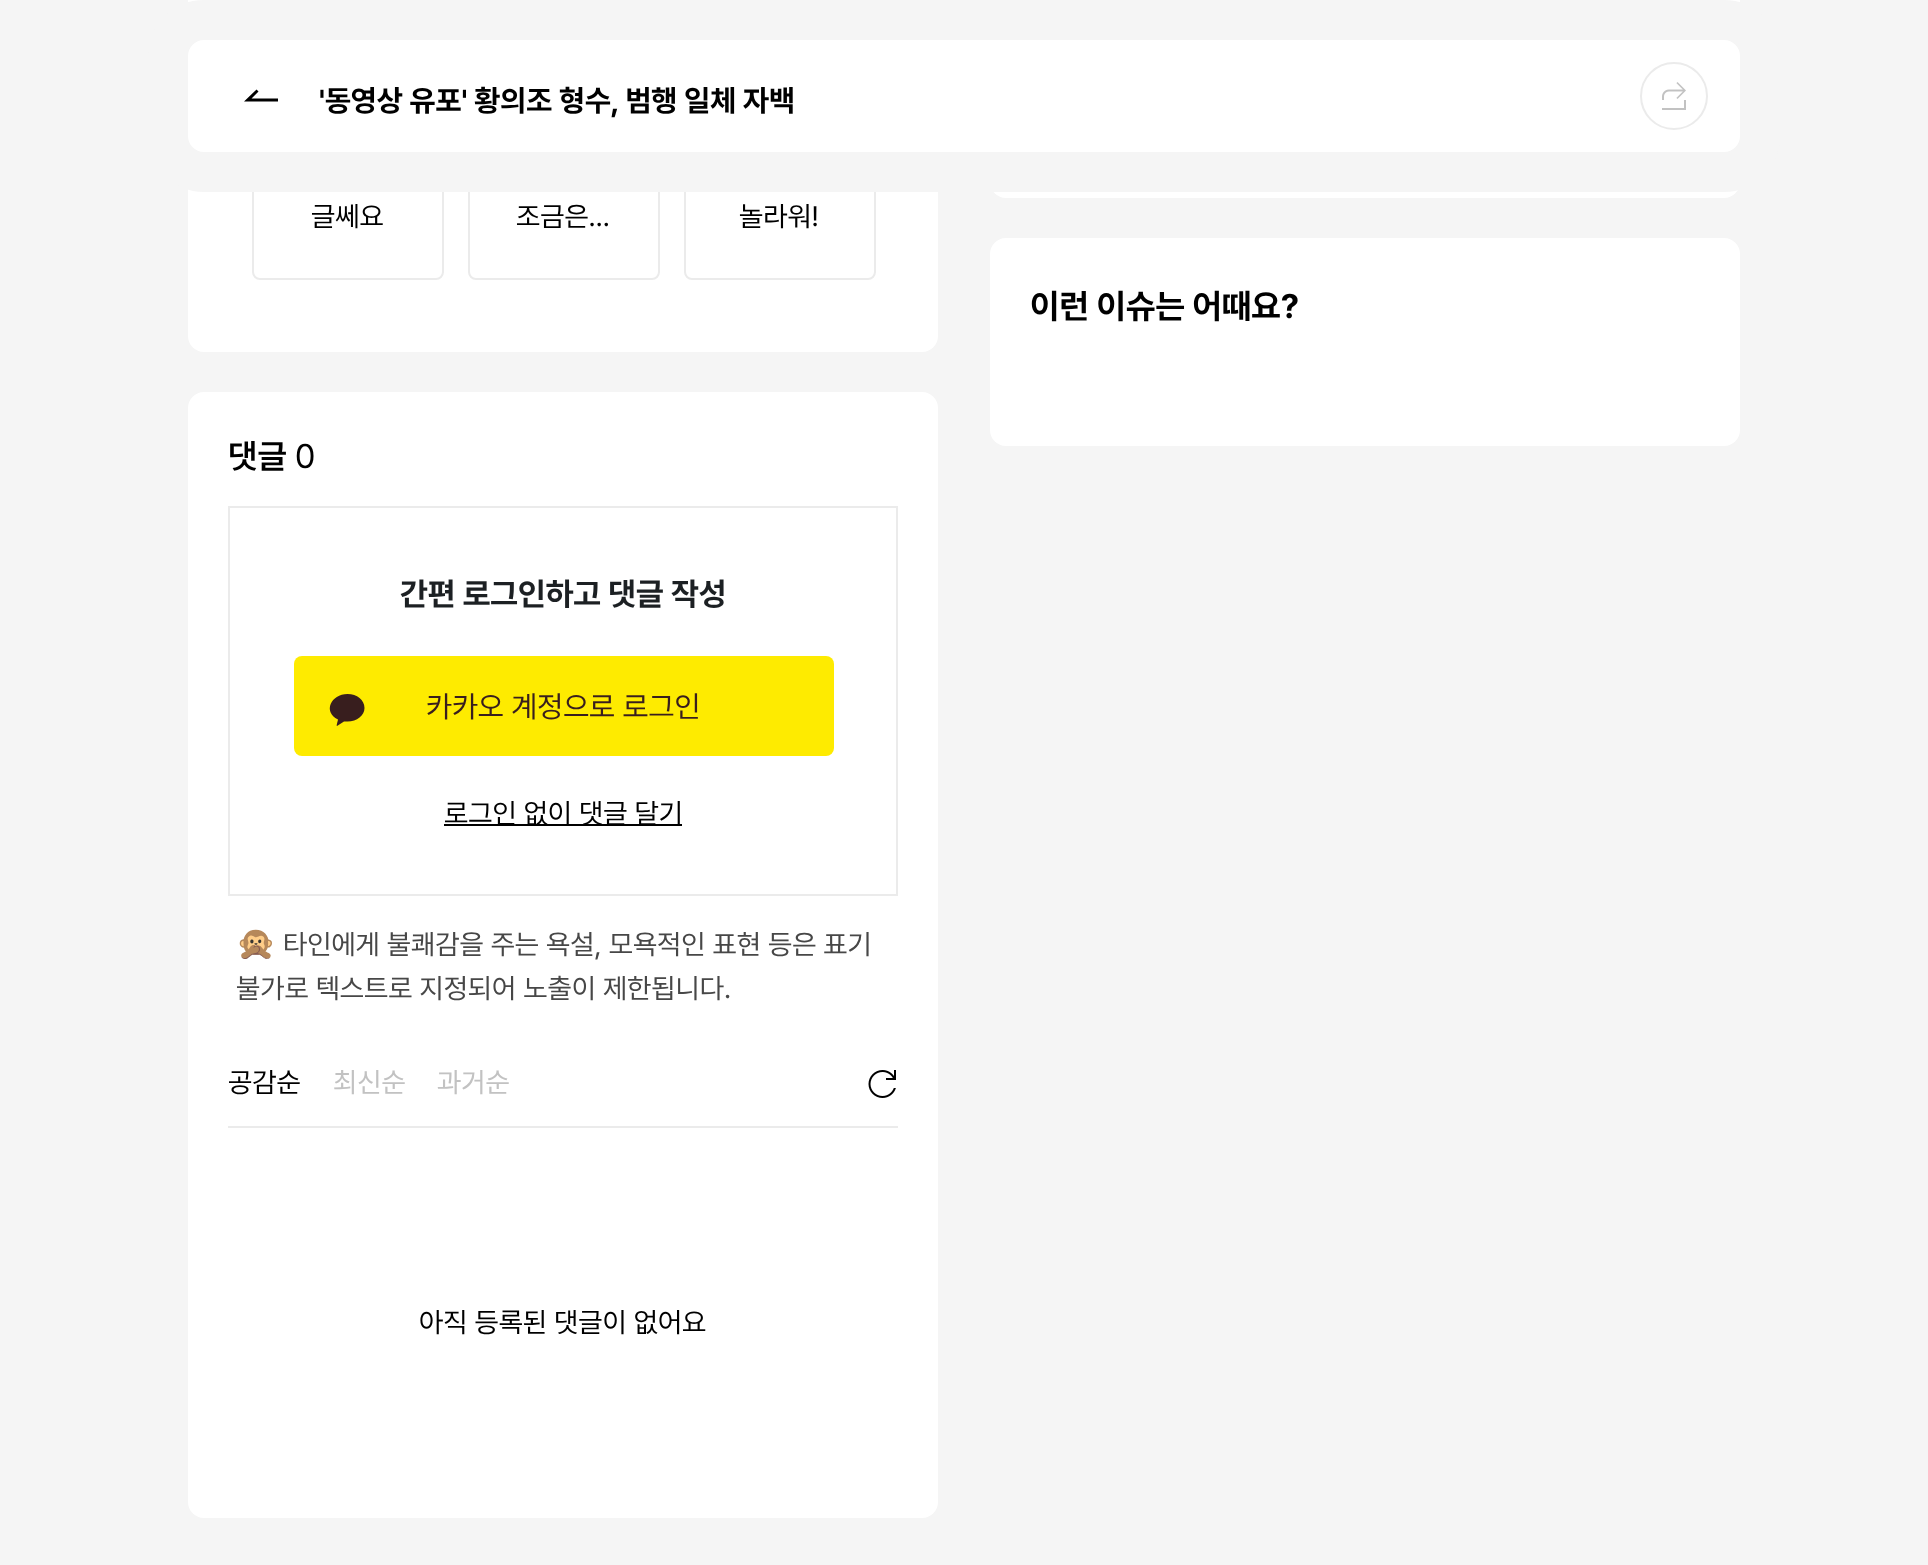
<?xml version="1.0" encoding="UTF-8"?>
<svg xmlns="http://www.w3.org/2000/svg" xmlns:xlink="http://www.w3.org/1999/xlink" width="1928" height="1565">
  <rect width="100%" height="100%" fill="#f5f5f5" />
  <rect x="188" y="-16" width="750" height="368" rx="16" fill="#ffffff" />
  <rect x="253" y="33" width="190" height="246" rx="7" fill="none" stroke="#ebebeb" stroke-width="2" />
  <rect x="469" y="33" width="190" height="246" rx="7" fill="none" stroke="#ebebeb" stroke-width="2" />
  <rect x="685" y="33" width="190" height="246" rx="7" fill="none" stroke="#ebebeb" stroke-width="2" />
  <rect x="990" y="-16" width="750" height="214" rx="16" fill="#ffffff" />
  <rect x="188" y="40" width="1552" height="112" rx="16" fill="#ffffff" />
  <rect x="168" y="20" width="1592" height="152" rx="36" fill="none" stroke="#f5f5f5" stroke-width="40" />
  <path d="M 256.5 89.5 l -12.5 12 h 34 v -3 h -26.5 l 7 -7 z" fill="#000000" fill-rule="evenodd" />
  <circle cx="1674" cy="96" r="33" fill="none" stroke="#ebebeb" stroke-width="2" />
  <image x="1662" y="82" width="24" height="28" xlink:href="image1.png" />
  <rect x="188" y="392" width="750" height="1126" rx="16" fill="#ffffff" />
  <rect x="229" y="507" width="668" height="388" fill="none" stroke="#ebebeb" stroke-width="2" />
  <rect x="294" y="656" width="540" height="100" rx="8" fill="#feeb00" />
  <path d="M 347.5 694 c -16.5 0 -25 18 -9.5 25.5 c 0 1 -2 6.5 -1 6.5 l 7 -4.5 h 3.5 c 9.5 0 17 -6 17 -13.5 c 0 -8 -7.5 -14 -17 -14 z" fill="#381e1e" />
  <rect x="444" y="824" width="238" height="2" fill="#000000" />
  <rect x="228" y="1126" width="670" height="2" fill="#ebebeb" />
  <image x="868" y="1070" width="28" height="28" xlink:href="image2.png" />
  <rect x="990" y="238" width="750" height="208" rx="16" fill="#ffffff" />
  <text x="319" y="111" style="font-family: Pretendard; font-size: 30px; font-weight: bold; fill: #000000">'동영상 유포' 황의조 형수, 범행 일체 자백</text>
  <text x="311" y="226" style="font-family: Pretendard; font-size: 28px; fill: #000000">글쎄요</text>
  <text x="516" y="226" style="font-family: Pretendard; font-size: 28px; fill: #000000">조금은…</text>
  <text x="739" y="226" style="font-family: Pretendard; font-size: 28px; fill: #000000">놀라워!</text>
  <text x="228" y="468" style="font-family: Pretendard; font-size: 34px; font-weight: 600; fill: #000000">댓글</text>
  <text x="295" y="468" style="font-family: Pretendard; font-size: 34px; fill: #000000">0</text>
  <text x="400" y="605" style="font-family: Pretendard; font-size: 32px; font-weight: bold; fill: #1c2023">간편 로그인하고 댓글 작성</text>
  <text x="426" y="717" style="font-family: Pretendard; font-size: 30px; fill: #381e1e">카카오 계정으로 로그인</text>
  <text x="444" y="823" style="font-family: Pretendard; font-size: 28px; fill: #000000">로그인 없이 댓글 달기</text>
  <text x="236" y="954" style="font-family: Noto Color Emoji; font-size: 32px; fill: #474747">🙊</text>
  <text x="283" y="954" style="font-family: Pretendard; font-size: 28px; fill: #474747">타인에게 불쾌감을 주는 욕설, 모욕적인 표현 등은 표기</text>
  <text x="236" y="998" style="font-family: Pretendard; font-size: 28px; fill: #474747">불가로 텍스트로 지정되어 노출이 제한됩니다.</text>
  <text x="228" y="1092" style="font-family: Pretendard; font-size: 28px; fill: #000000">공감순</text>
  <text x="333" y="1092" style="font-family: Pretendard; font-size: 28px; fill: #c2c2c2">최신순</text>
  <text x="437" y="1092" style="font-family: Pretendard; font-size: 28px; fill: #c2c2c2">과거순</text>
  <text x="419" y="1332" style="font-family: Pretendard; font-size: 28px; fill: #000000">아직 등록된 댓글이 없어요</text>
  <text x="1030" y="318" style="font-family: Pretendard; font-size: 34px; font-weight: bold; fill: #000000">이런 이슈는 어때요?</text>
</svg>
